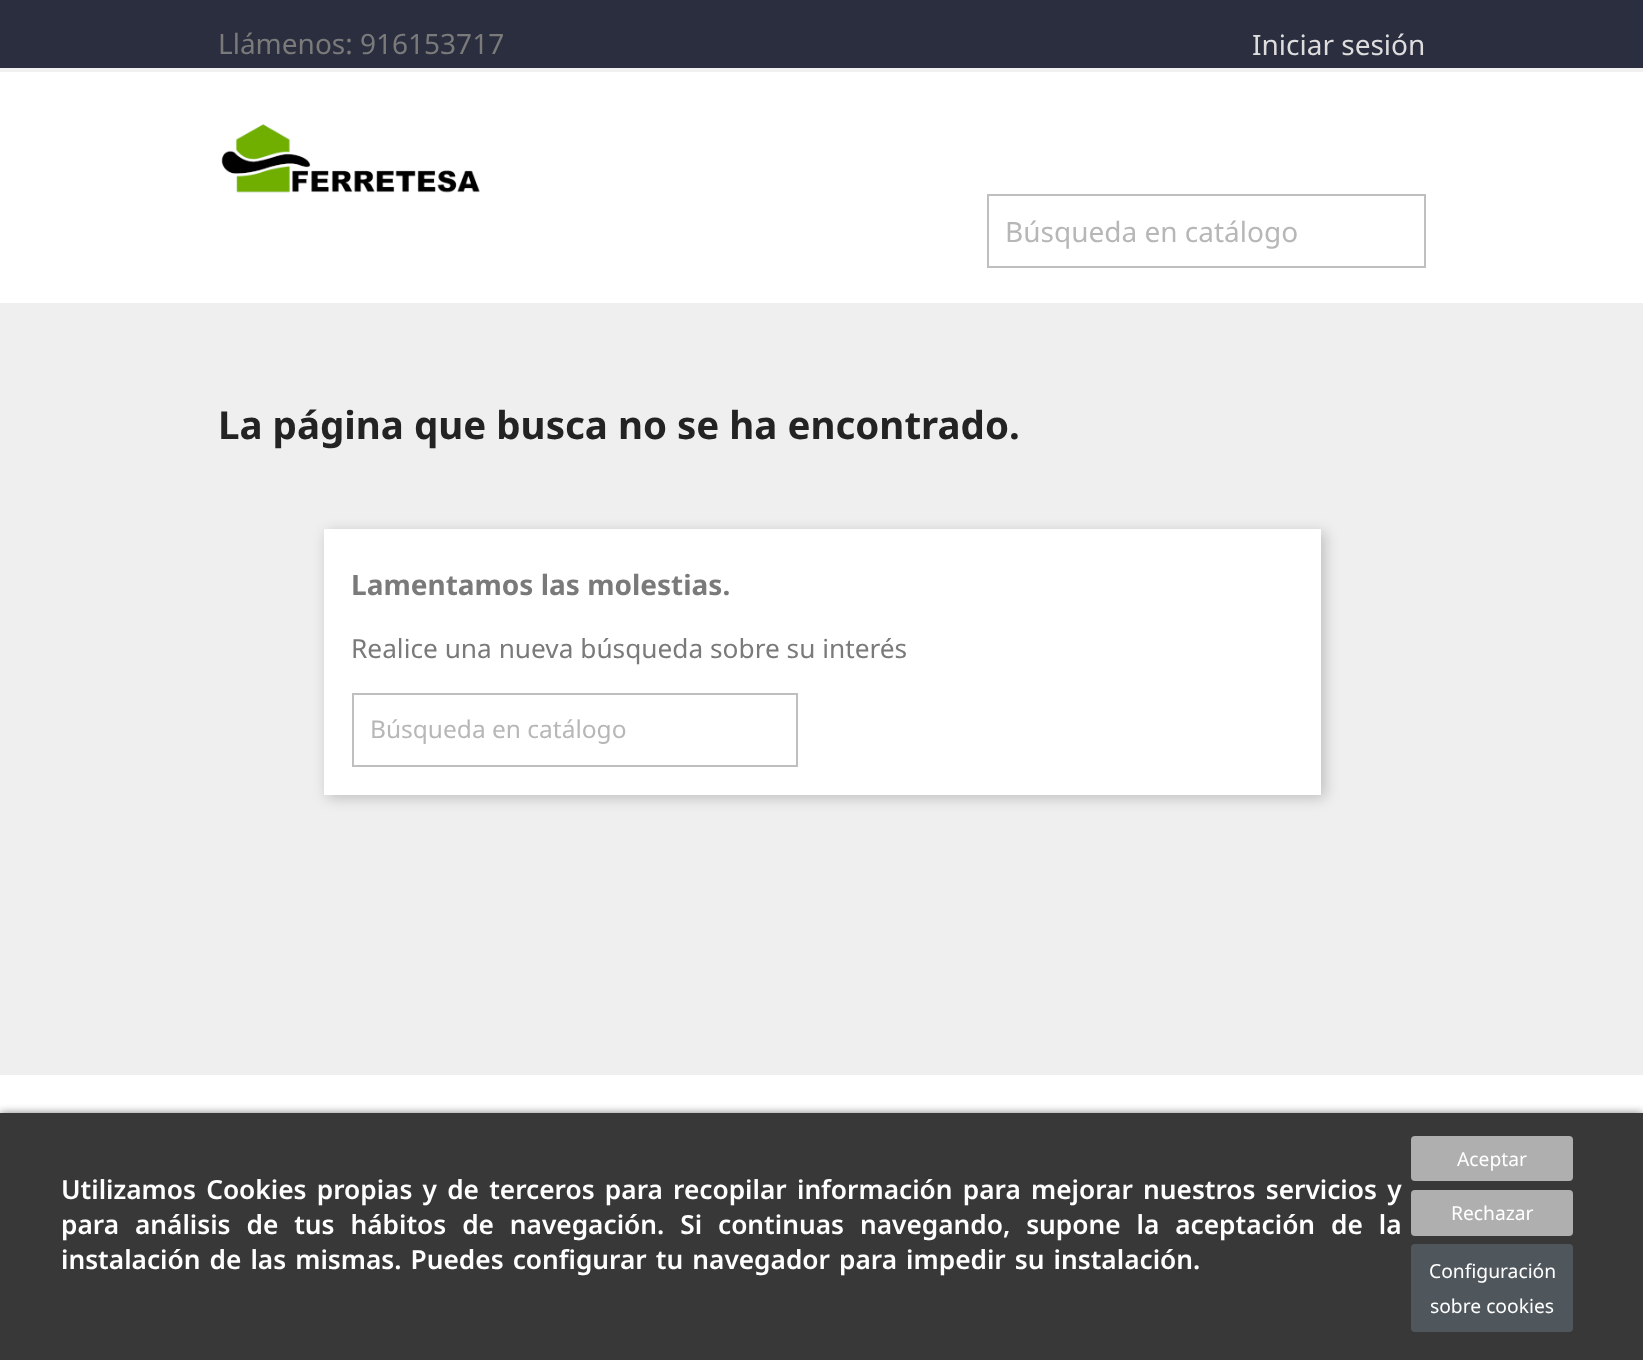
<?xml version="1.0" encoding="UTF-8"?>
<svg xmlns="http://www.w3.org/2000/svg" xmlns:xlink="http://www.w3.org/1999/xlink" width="1643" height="1360">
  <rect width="100%" height="100%" fill="#ffffff" />
  <rect width="1643" height="68" fill="#2b2e3f" />
  <rect y="68" width="1643" height="4" fill="#f1f1f1" />
  <image x="221" y="124" width="259" height="69" xlink:href="image1.png" />
  <rect x="988" y="195" width="437" height="72" fill="none" stroke="#bfbfbf" stroke-width="2" />
  <rect y="303" width="1643" height="772" fill="#efefef" />
  <rect x="327" y="532" width="998" height="266" fill="#000000" fill-opacity="0.2" filter="blur(7px)" />
  <rect x="324" y="529" width="997" height="266" fill="#ffffff" />
  <rect x="353" y="694" width="444" height="72" fill="none" stroke="#bfbfbf" stroke-width="2" />
  <rect y="1113" width="1643" height="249" fill="#000000" fill-opacity="0.5" filter="blur(4.5px)" />
  <rect y="1113" width="1643" height="247" fill="#383838" />
  <rect x="1411" y="1136" width="162" height="45" rx="4" fill="#afafaf" />
  <rect x="1411" y="1190" width="162" height="46" rx="4" fill="#afafaf" />
  <rect x="1411" y="1244" width="162" height="88" rx="4" fill="#50575c" />
  <text x="218" y="54" style="font-family: Noto Sans; font-size: 28px; fill: #7a7a7a">Llámenos: 916153717</text>
  <text x="1252" y="55" style="font-family: Noto Sans; font-size: 28px; fill: #dddddd">Iniciar sesión</text>
  <text x="1005" y="242" style="font-family: Noto Sans; font-size: 28px; fill: #b7b7b7">Búsqueda en catálogo</text>
  <text x="218" y="439" style="font-family: Noto Sans; font-size: 38.5px; font-weight: bold; fill: #232323">La página que busca no se ha encontrado.</text>
  <text x="351" y="595" style="font-family: Noto Sans; font-size: 28px; font-weight: bold; fill: #7a7a7a">Lamentamos las molestias.</text>
  <text x="351" y="658" style="font-family: Noto Sans; font-size: 26.25px; fill: #7a7a7a">Realice una nueva búsqueda sobre su interés</text>
  <text x="370" y="738" style="font-family: Noto Sans; font-size: 24.5px; fill: #b7b7b7">Búsqueda en catálogo</text>
  <text x="61" y="1199" word-spacing="3.4" style="font-family: Noto Sans; font-size: 26.25px; font-weight: 600; fill: #ffffff">Utilizamos Cookies propias y de terceros para recopilar información para mejorar nuestros servicios y</text>
  <text x="61" y="1234" word-spacing="9.1" style="font-family: Noto Sans; font-size: 26.25px; font-weight: 600; fill: #ffffff">para análisis de tus hábitos de navegación. Si continuas navegando, supone la aceptación de la</text>
  <text x="61" y="1269" word-spacing="2.25" style="font-family: Noto Sans; font-size: 26.25px; font-weight: 600; fill: #ffffff">instalación de las mismas. Puedes configurar tu navegador para impedir su instalación.</text>
  <text x="1457" y="1166" style="font-family: Noto Sans; font-size: 19.25px; fill: #ffffff">Aceptar</text>
  <text x="1451" y="1220" style="font-family: Noto Sans; font-size: 19.25px; fill: #ffffff">Rechazar</text>
  <text x="1429" y="1278" style="font-family: Noto Sans; font-size: 19.25px; fill: #ffffff">Configuración</text>
  <text x="1430" y="1313" style="font-family: Noto Sans; font-size: 19.25px; fill: #ffffff">sobre cookies</text>
</svg>
